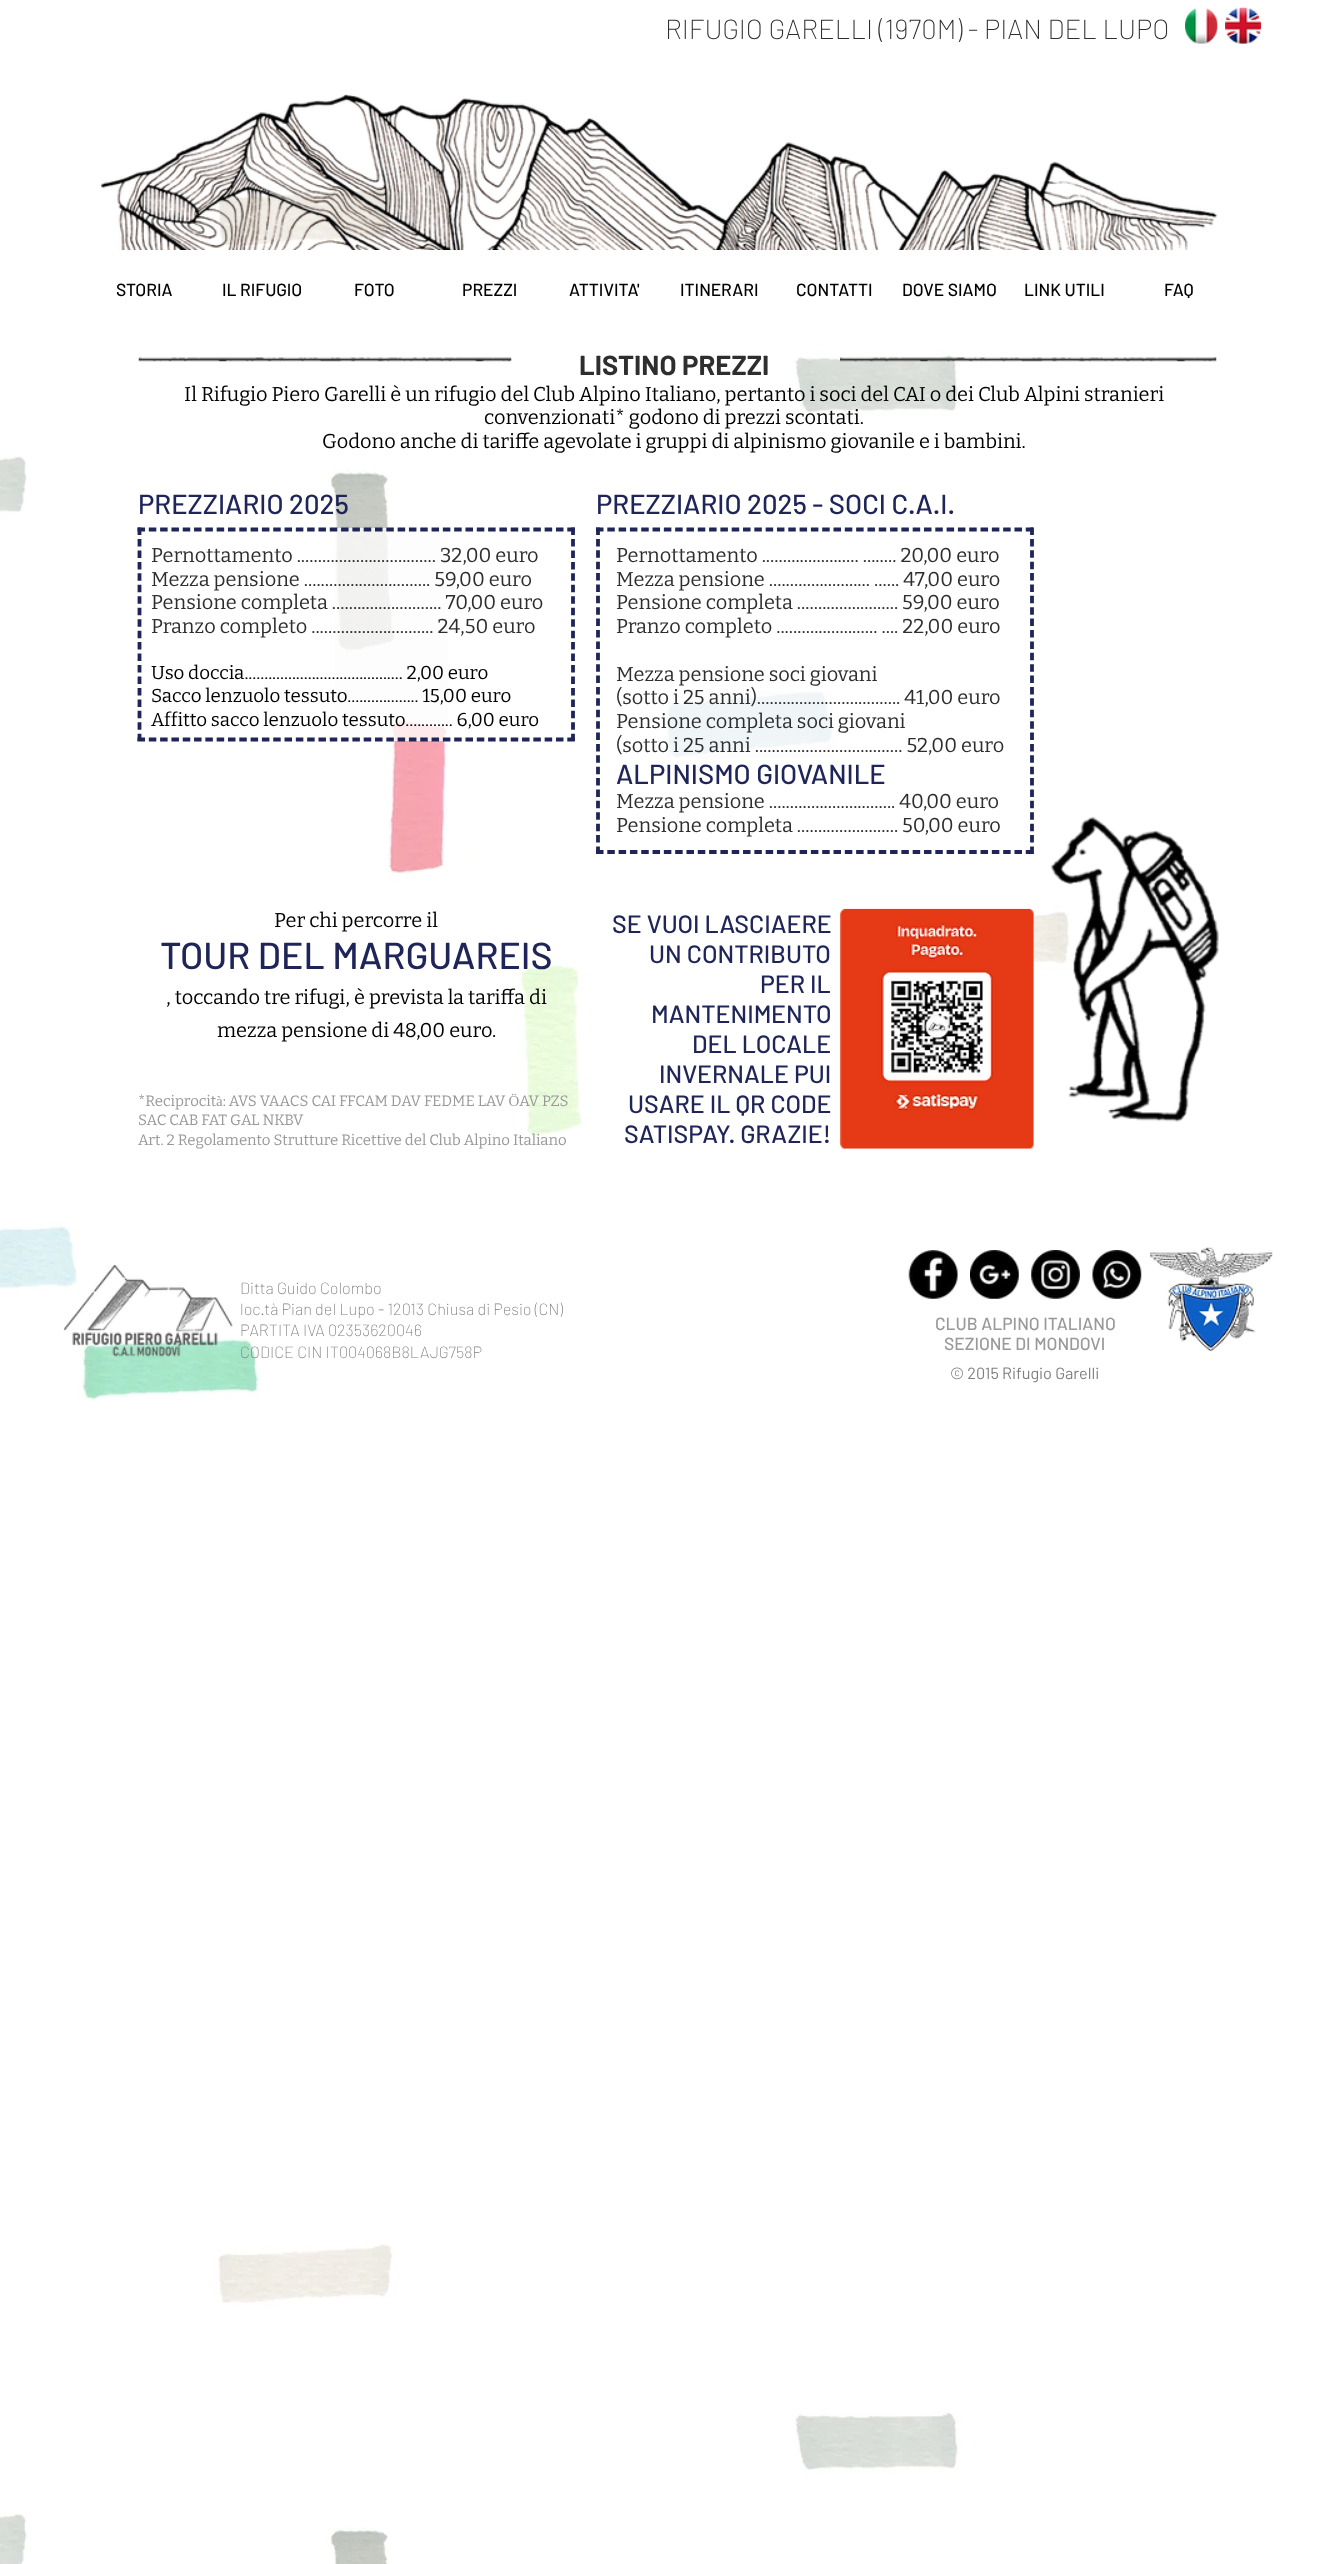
<?xml version="1.0" encoding="UTF-8"?>
<svg xmlns="http://www.w3.org/2000/svg" xmlns:xlink="http://www.w3.org/1999/xlink" width="1335" height="2564">
  <rect width="100%" height="100%" fill="#ffffff" />
  <image x="0" y="0" width="1335" height="2564" xlink:href="image1.png" />
  <image x="1185" y="8" width="33" height="36" xlink:href="image2.png" />
  <image x="1225" y="7" width="37" height="37" xlink:href="image3.png" />
  <image x="100" y="94" width="1118" height="156" xlink:href="image4.png" />
  <image x="138" y="357" width="374" height="5" xlink:href="image5.png" />
  <image x="840" y="357" width="377" height="5" xlink:href="image6.png" />
  <rect x="335" y="528" width="113" height="213" fill="#fefdfd" fill-opacity="0.8" />
  <path d="M 137.5 529.5 h 437.5" fill="none" stroke="#1f2559" stroke-width="3.8" stroke-dasharray="7.5 3.81" />
  <path d="M 573 527.5 v 213.5" fill="none" stroke="#1f2559" stroke-width="3.8" stroke-dasharray="7.5 3.96" />
  <path d="M 137.5 739.5 h 437.5" fill="none" stroke="#1f2559" stroke-width="3.8" stroke-dasharray="7.5 3.81" />
  <path d="M 139.5 527.5 v 213.5" fill="none" stroke="#1f2559" stroke-width="3.8" stroke-dasharray="7.5 3.96" />
  <rect x="667" y="691" width="166" height="67" fill="#fefdfd" fill-opacity="0.8" />
  <path d="M 596 529.5 h 438" fill="none" stroke="#1f2559" stroke-width="3.8" stroke-dasharray="7.5 3.81" />
  <path d="M 1032 527.5 v 326.5" fill="none" stroke="#1f2559" stroke-width="3.8" stroke-dasharray="7.5 3.89" />
  <path d="M 596 852 h 438" fill="none" stroke="#1f2559" stroke-width="3.8" stroke-dasharray="7.5 3.81" />
  <path d="M 598 527.5 v 326.5" fill="none" stroke="#1f2559" stroke-width="3.8" stroke-dasharray="7.5 3.89" />
  <image x="840" y="908" width="194" height="241" xlink:href="image7.png" />
  <image x="1050" y="816" width="169" height="306" xlink:href="image8.png" />
  <image x="63" y="1265" width="170" height="92" xlink:href="image9.png" />
  <image x="908" y="1250" width="50" height="49" xlink:href="image10.png" />
  <image x="970" y="1250" width="49" height="49" xlink:href="image11.png" />
  <image x="1031" y="1250" width="49" height="49" xlink:href="image12.png" />
  <image x="1092" y="1250" width="50" height="49" xlink:href="image13.png" />
  <image x="1150" y="1247" width="123" height="105" xlink:href="image14.png" />
  <text x="665" y="39" style="font-family: Barlow; font-size: 27.5px; font-weight: 200; fill: #2e2e2e">RIFUGIO GARELLI (1970M) - PIAN DEL LUPO</text>
  <text x="116" y="296" style="font-family: Barlow; font-size: 17.5px; font-weight: 500; fill: #000000">STORIA</text>
  <text x="222" y="296" style="font-family: Barlow; font-size: 17.5px; font-weight: 500; fill: #000000">IL RIFUGIO</text>
  <text x="354" y="296" style="font-family: Barlow; font-size: 17.5px; font-weight: 500; fill: #000000">FOTO</text>
  <text x="462" y="296" style="font-family: Barlow; font-size: 17.5px; font-weight: 500; fill: #000000">PREZZI</text>
  <text x="569" y="296" style="font-family: Barlow; font-size: 17.5px; font-weight: 500; fill: #000000">ATTIVITA'</text>
  <text x="680" y="296" style="font-family: Barlow; font-size: 17.5px; font-weight: 500; fill: #000000">ITINERARI</text>
  <text x="796" y="296" style="font-family: Barlow; font-size: 17.5px; font-weight: 500; fill: #000000">CONTATTI</text>
  <text x="902" y="296" style="font-family: Barlow; font-size: 17.5px; font-weight: 500; fill: #000000">DOVE SIAMO</text>
  <text x="1024" y="296" style="font-family: Barlow; font-size: 17.5px; font-weight: 500; fill: #000000">LINK UTILI</text>
  <text x="1164" y="296" style="font-family: Barlow; font-size: 17.5px; font-weight: 500; fill: #000000">FAQ</text>
  <text x="579" y="375" style="font-family: Barlow; font-size: 27.5px; font-weight: bold; fill: #2e2e2e">LISTINO PREZZI</text>
  <text x="184" y="401" style="font-family: Bitter; font-size: 20px; fill: #000000">Il Rifugio Piero Garelli è un rifugio del Club Alpino Italiano, pertanto i soci del CAI o dei Club Alpini stranieri</text>
  <text x="484" y="424" style="font-family: Bitter; font-size: 20px; fill: #000000">convenzionati* godono di prezzi scontati.</text>
  <text x="322" y="448" style="font-family: Bitter; font-size: 20px; fill: #000000">Godono anche di tariffe agevolate i gruppi di alpinismo giovanile e i bambini.</text>
  <text x="138" y="514" style="font-family: Barlow; font-size: 27.5px; font-weight: 500; fill: #1f2559">PREZZIARIO 2025</text>
  <text x="596" y="514" style="font-family: Barlow; font-size: 27.5px; font-weight: 500; fill: #1f2559">PREZZIARIO 2025 - SOCI C.A.I.</text>
  <text x="151" y="562" style="font-family: Bitter; font-size: 20px; fill: #2e2e2e">Pernottamento ................................. 32,00 euro</text>
  <text x="151" y="586" style="font-family: Bitter; font-size: 20px; fill: #2e2e2e">Mezza pensione .............................. 59,00 euro</text>
  <text x="151" y="609" style="font-family: Bitter; font-size: 20px; fill: #2e2e2e">Pensione completa .......................... 70,00 euro</text>
  <text x="151" y="633" style="font-family: Bitter; font-size: 20px; fill: #2e2e2e">Pranzo completo ............................. 24,50 euro</text>
  <text x="151" y="679" style="font-family: Bitter; font-size: 18.75px; fill: #000000">Uso doccia........................................ 2,00 euro</text>
  <text x="151" y="702" style="font-family: Bitter; font-size: 18.75px; fill: #000000">Sacco lenzuolo tessuto.................. 15,00 euro</text>
  <text x="151" y="726" style="font-family: Bitter; font-size: 18.75px; fill: #000000">Affitto sacco lenzuolo tessuto............ 6,00 euro</text>
  <text x="616" y="562" style="font-family: Bitter; font-size: 20px; fill: #2e2e2e">Pernottamento ....................... ........ 20,00 euro</text>
  <text x="616" y="586" style="font-family: Bitter; font-size: 20px; fill: #2e2e2e">Mezza pensione ........................ ...... 47,00 euro</text>
  <text x="616" y="609" style="font-family: Bitter; font-size: 20px; fill: #2e2e2e">Pensione completa ........................ 59,00 euro</text>
  <text x="616" y="633" style="font-family: Bitter; font-size: 20px; fill: #2e2e2e">Pranzo completo ........................ .... 22,00 euro</text>
  <text x="616" y="681" style="font-family: Bitter; font-size: 20px; fill: #2e2e2e">Mezza pensione soci giovani</text>
  <text x="616" y="704" style="font-family: Bitter; font-size: 20px; fill: #2e2e2e">(sotto i 25 anni).................................. 41,00 euro</text>
  <text x="616" y="728" style="font-family: Bitter; font-size: 20px; fill: #2e2e2e">Pensione completa soci giovani</text>
  <text x="616" y="752" style="font-family: Bitter; font-size: 20px; fill: #2e2e2e">(sotto i 25 anni ................................... 52,00 euro</text>
  <text x="616" y="784" style="font-family: Barlow; font-size: 27.5px; font-weight: 500; fill: #1f2559">ALPINISMO GIOVANILE</text>
  <text x="616" y="808" style="font-family: Bitter; font-size: 20px; fill: #2e2e2e">Mezza pensione .............................. 40,00 euro</text>
  <text x="616" y="832" style="font-family: Bitter; font-size: 20px; fill: #2e2e2e">Pensione completa ........................ 50,00 euro</text>
  <text x="274" y="927" style="font-family: Bitter; font-size: 20px; fill: #000000">Per chi percorre il</text>
  <text x="160" y="969" style="font-family: Barlow; font-size: 37.5px; font-weight: 500; fill: #1f2559">TOUR DEL MARGUAREIS</text>
  <text x="166" y="1004" style="font-family: Bitter; font-size: 20px; fill: #000000">, toccando tre rifugi, è prevista la tariffa di</text>
  <text x="217" y="1037" style="font-family: Bitter; font-size: 20px; fill: #000000">mezza pensione di 48,00 euro.</text>
  <text x="612" y="933" style="font-family: Barlow; font-size: 25px; font-weight: 500; fill: #1f2559">SE VUOI LASCIAERE</text>
  <text x="649" y="963" style="font-family: Barlow; font-size: 25px; font-weight: 500; fill: #1f2559">UN CONTRIBUTO</text>
  <text x="760" y="993" style="font-family: Barlow; font-size: 25px; font-weight: 500; fill: #1f2559">PER IL</text>
  <text x="651" y="1023" style="font-family: Barlow; font-size: 25px; font-weight: 500; fill: #1f2559">MANTENIMENTO</text>
  <text x="692" y="1053" style="font-family: Barlow; font-size: 25px; font-weight: 500; fill: #1f2559">DEL LOCALE</text>
  <text x="659" y="1083" style="font-family: Barlow; font-size: 25px; font-weight: 500; fill: #1f2559">INVERNALE PUI</text>
  <text x="628" y="1113" style="font-family: Barlow; font-size: 25px; font-weight: 500; fill: #1f2559">USARE IL QR CODE</text>
  <text x="624" y="1143" style="font-family: Barlow; font-size: 25px; font-weight: 500; fill: #1f2559">SATISPAY. GRAZIE!</text>
  <text x="138" y="1106" style="font-family: Bitter; font-size: 15px; fill: #999999">*Reciprocità: AVS VAACS CAI FFCAM DAV FEDME LAV ÖAV PZS</text>
  <text x="138" y="1125" style="font-family: Bitter; font-size: 15px; fill: #999999">SAC CAB FAT GAL NKBV</text>
  <text x="138" y="1145" style="font-family: Bitter; font-size: 15px; fill: #999999">Art. 2 Regolamento Strutture Ricettive del Club Alpino Italiano</text>
  <text x="240" y="1294" style="font-family: Barlow; font-size: 16.25px; font-weight: 200; fill: #7f7f7f">Ditta Guido Colombo</text>
  <text x="240" y="1315" style="font-family: Barlow; font-size: 16.25px; font-weight: 200; fill: #7f7f7f">loc.tà Pian del Lupo - 12013 Chiusa di Pesio (CN)</text>
  <text x="240" y="1336" style="font-family: Barlow; font-size: 16.25px; font-weight: 200; fill: #7f7f7f">PARTITA IVA 02353620046</text>
  <text x="240" y="1358" style="font-family: Barlow; font-size: 16.25px; font-weight: 200; fill: #7f7f7f">CODICE CIN IT004068B8LAJG758P</text>
  <text x="935" y="1330" style="font-family: Barlow; font-size: 17.5px; font-weight: 500; fill: #999999">CLUB ALPINO ITALIANO</text>
  <text x="944" y="1350" style="font-family: Barlow; font-size: 17.5px; font-weight: 500; fill: #999999">SEZIONE DI MONDOVI</text>
  <text x="950" y="1379" style="font-family: Barlow; font-size: 16.25px; fill: #7f7f7f">© 2015 Rifugio Garelli</text>
</svg>
